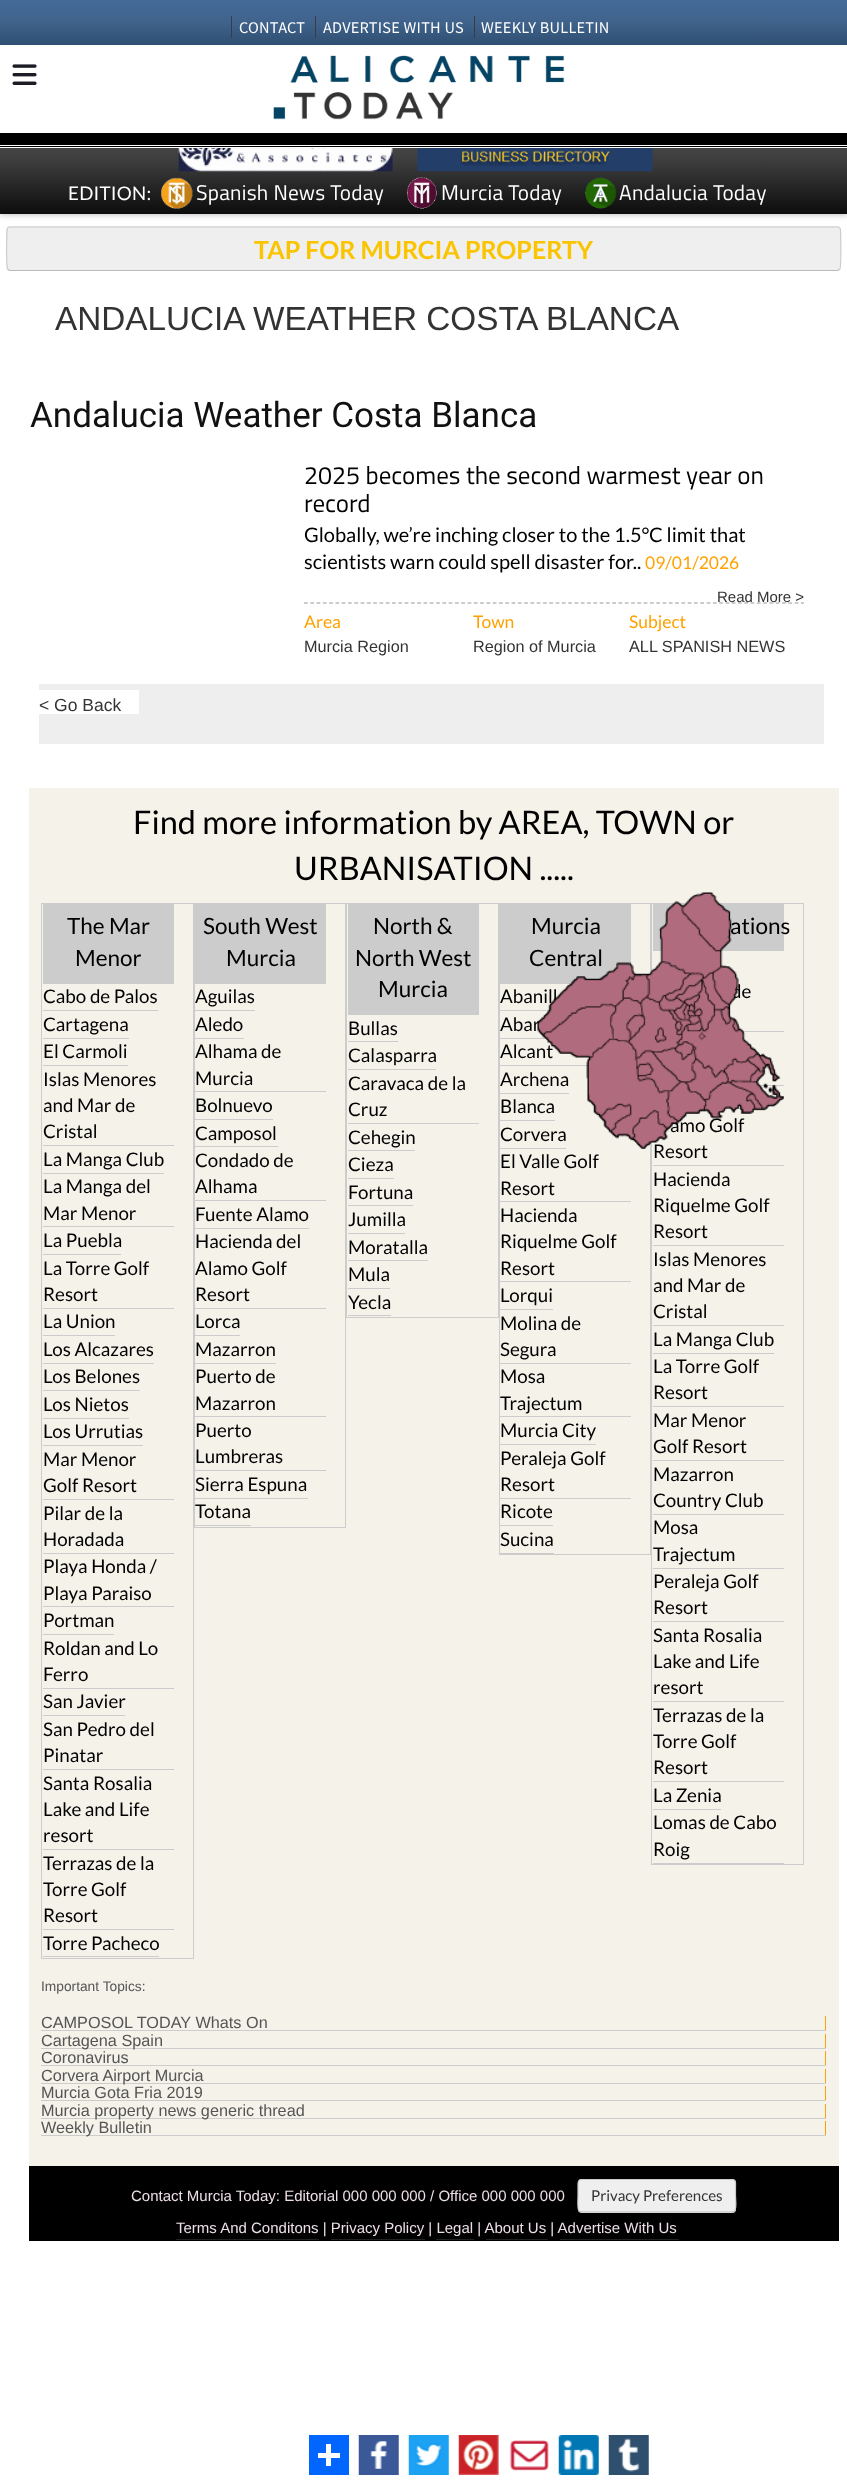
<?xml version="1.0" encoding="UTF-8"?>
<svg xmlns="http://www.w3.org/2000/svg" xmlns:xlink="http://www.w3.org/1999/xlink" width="847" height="2484">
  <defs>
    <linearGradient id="g1" gradientUnits="userSpaceOnUse" x1="424" y1="0" x2="424" y2="45"><stop offset="0" stop-color="#446b98" /><stop offset="0.5" stop-color="#40638c" /><stop offset="1" stop-color="#2f4f71" /></linearGradient>
    <linearGradient id="g2" gradientUnits="userSpaceOnUse" x1="424" y1="111" x2="424" y2="214"><stop offset="0" stop-color="#5a5a5a" /><stop offset="0.5" stop-color="#3c3c3c" /><stop offset="1" stop-color="#0c0c0c" /></linearGradient>
  </defs>
  <rect width="100%" height="100%" fill="#ffffff" />
  <rect y="1" width="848" height="214" fill="#000000" fill-opacity="0.25" filter="blur(3px)" />
  <rect width="847" height="45" fill="url(#g1)" />
  <rect x="231" y="16" width="1" height="22" fill="#3a3b44" />
  <rect x="315" y="16" width="1" height="22" fill="#3a3b44" />
  <rect x="474" y="16" width="1" height="22" fill="#3a3b44" />
  <rect y="45" width="847" height="103" fill="#ffffff" />
  <rect y="146" width="847" height="1" fill="#000000" />
  <image x="12" y="64" width="25" height="21" xlink:href="image1.png" />
  <image x="273" y="55" width="292" height="65" xlink:href="image2.png" />
  <rect y="133" width="847" height="12" fill="#000000" />
  <rect y="148" width="847" height="66" fill="url(#g2)" />
  <image x="178" y="148" width="215" height="24" xlink:href="image3.png" />
  <image x="417" y="148" width="236" height="24" xlink:href="image4.png" />
  <image x="161" y="177" width="32" height="32" xlink:href="image5.png" />
  <image x="407" y="177" width="30" height="32" xlink:href="image6.png" />
  <image x="585" y="177" width="32" height="32" xlink:href="image7.png" />
  <rect x="6" y="226" width="835" height="45" rx="4" fill="#efefef" />
  <path d="M 839.5 269.5 l -2 1 h -827.5 l -2 -1" fill="none" stroke="#bbbbbb" stroke-width="1.2" />
  <path d="M 8 269.5 c -2.5 -2 -1 -34.5 -1 -39.5 c 0 -1.5 1.5 -3 3 -3 h 827.5 c 1.5 0 3 1.5 3 3 c 0 5 1.5 37.5 -1 39.5" fill="none" stroke="#cccccc" stroke-width="1.2" />
  <path d="M 304 603 h 500" fill="none" stroke="#999999" stroke-width="1.2" stroke-dasharray="3.75 2.54" />
  <rect x="39" y="684" width="785" height="60" fill="#eeeeee" />
  <rect x="39" y="690" width="100" height="24" fill="#ffffff" />
  <rect x="29" y="788" width="810" height="1378" fill="#f4f2e9" />
  <rect x="41.5" y="903.5" width="152" height="1055" fill="none" stroke="#cccccc" />
  <rect x="43" y="904" width="131" height="80" fill="#cccccc" />
  <rect x="43" y="1010" width="115" height="1" fill="#cccccc" />
  <rect x="43" y="1038" width="86" height="1" fill="#cccccc" />
  <rect x="43" y="1065" width="85" height="1" fill="#cccccc" />
  <rect x="43" y="1145" width="131" height="1" fill="#cccccc" />
  <rect x="43" y="1173" width="121" height="1" fill="#cccccc" />
  <rect x="43" y="1226" width="131" height="1" fill="#cccccc" />
  <rect x="43" y="1254" width="78" height="1" fill="#cccccc" />
  <rect x="43" y="1308" width="131" height="1" fill="#cccccc" />
  <rect x="43" y="1335" width="72" height="1" fill="#cccccc" />
  <rect x="43" y="1363" width="111" height="1" fill="#cccccc" />
  <rect x="43" y="1390" width="97" height="1" fill="#cccccc" />
  <rect x="43" y="1418" width="86" height="1" fill="#cccccc" />
  <rect x="43" y="1445" width="100" height="1" fill="#cccccc" />
  <rect x="43" y="1499" width="131" height="1" fill="#cccccc" />
  <rect x="43" y="1553" width="131" height="1" fill="#cccccc" />
  <rect x="43" y="1606" width="131" height="1" fill="#cccccc" />
  <rect x="43" y="1634" width="71" height="1" fill="#cccccc" />
  <rect x="43" y="1688" width="131" height="1" fill="#cccccc" />
  <rect x="43" y="1715" width="82" height="1" fill="#cccccc" />
  <rect x="43" y="1769" width="131" height="1" fill="#cccccc" />
  <rect x="43" y="1849" width="131" height="1" fill="#cccccc" />
  <rect x="43" y="1929" width="131" height="1" fill="#cccccc" />
  <rect x="43" y="1956" width="116" height="1" fill="#cccccc" />
  <rect x="194.5" y="903.5" width="151" height="624" fill="none" stroke="#cccccc" />
  <rect x="195" y="904" width="131" height="80" fill="#cccccc" />
  <rect x="195" y="1010" width="60" height="1" fill="#cccccc" />
  <rect x="195" y="1038" width="49" height="1" fill="#cccccc" />
  <rect x="195" y="1091" width="131" height="1" fill="#cccccc" />
  <rect x="195" y="1119" width="78" height="1" fill="#cccccc" />
  <rect x="195" y="1146" width="83" height="1" fill="#cccccc" />
  <rect x="195" y="1200" width="131" height="1" fill="#cccccc" />
  <rect x="195" y="1228" width="114" height="1" fill="#cccccc" />
  <rect x="195" y="1308" width="131" height="1" fill="#cccccc" />
  <rect x="195" y="1335" width="45" height="1" fill="#cccccc" />
  <rect x="195" y="1363" width="81" height="1" fill="#cccccc" />
  <rect x="195" y="1416" width="131" height="1" fill="#cccccc" />
  <rect x="195" y="1470" width="131" height="1" fill="#cccccc" />
  <rect x="195" y="1498" width="113" height="1" fill="#cccccc" />
  <rect x="195" y="1525" width="56" height="1" fill="#cccccc" />
  <rect x="346.5" y="903.5" width="152" height="414" fill="none" stroke="#cccccc" />
  <rect x="348" y="904" width="131" height="111" fill="#cccccc" />
  <rect x="348" y="1041" width="50" height="1" fill="#cccccc" />
  <rect x="348" y="1069" width="88" height="1" fill="#cccccc" />
  <rect x="348" y="1123" width="131" height="1" fill="#cccccc" />
  <rect x="348" y="1150" width="67" height="1" fill="#cccccc" />
  <rect x="348" y="1178" width="46" height="1" fill="#cccccc" />
  <rect x="348" y="1205" width="65" height="1" fill="#cccccc" />
  <rect x="348" y="1233" width="57" height="1" fill="#cccccc" />
  <rect x="348" y="1260" width="80" height="1" fill="#cccccc" />
  <rect x="348" y="1288" width="42" height="1" fill="#cccccc" />
  <rect x="348" y="1315" width="43" height="1" fill="#cccccc" />
  <rect x="499.5" y="903.5" width="151" height="651" fill="none" stroke="#cccccc" />
  <rect x="500" y="904" width="131" height="80" fill="#cccccc" />
  <rect x="500" y="1010" width="50" height="1" fill="#cccccc" />
  <rect x="500" y="1038" width="48" height="1" fill="#cccccc" />
  <rect x="500" y="1065" width="94" height="1" fill="#cccccc" />
  <rect x="500" y="1093" width="69" height="1" fill="#cccccc" />
  <rect x="500" y="1120" width="55" height="1" fill="#cccccc" />
  <rect x="500" y="1148" width="66" height="1" fill="#cccccc" />
  <rect x="500" y="1201" width="131" height="1" fill="#cccccc" />
  <rect x="500" y="1281" width="131" height="1" fill="#cccccc" />
  <rect x="500" y="1309" width="53" height="1" fill="#cccccc" />
  <rect x="500" y="1363" width="131" height="1" fill="#cccccc" />
  <rect x="500" y="1416" width="131" height="1" fill="#cccccc" />
  <rect x="500" y="1444" width="96" height="1" fill="#cccccc" />
  <rect x="500" y="1498" width="131" height="1" fill="#cccccc" />
  <rect x="500" y="1525" width="53" height="1" fill="#cccccc" />
  <rect x="500" y="1553" width="54" height="1" fill="#cccccc" />
  <rect x="651.5" y="903.5" width="152" height="961" fill="none" stroke="#cccccc" />
  <rect x="653" y="904" width="131" height="47" fill="#cccccc" />
  <rect x="742" y="1031" width="42" height="1" fill="#cccccc" />
  <rect x="758" y="1085" width="26" height="1" fill="#cccccc" />
  <rect x="653" y="1165" width="131" height="1" fill="#cccccc" />
  <rect x="653" y="1245" width="131" height="1" fill="#cccccc" />
  <rect x="653" y="1325" width="131" height="1" fill="#cccccc" />
  <rect x="653" y="1353" width="121" height="1" fill="#cccccc" />
  <rect x="653" y="1406" width="131" height="1" fill="#cccccc" />
  <rect x="653" y="1460" width="131" height="1" fill="#cccccc" />
  <rect x="653" y="1514" width="131" height="1" fill="#cccccc" />
  <rect x="653" y="1568" width="131" height="1" fill="#cccccc" />
  <rect x="653" y="1621" width="131" height="1" fill="#cccccc" />
  <rect x="653" y="1701" width="131" height="1" fill="#cccccc" />
  <rect x="653" y="1781" width="131" height="1" fill="#cccccc" />
  <rect x="653" y="1809" width="68" height="1" fill="#cccccc" />
  <rect x="653" y="1863" width="131" height="1" fill="#cccccc" />
  <rect x="825" y="2016" width="1" height="15" fill="#ffa200" />
  <rect x="41" y="2030" width="785" height="1" fill="#cccccc" />
  <rect x="825" y="2034" width="1" height="15" fill="#ffa200" />
  <rect x="41" y="2048" width="785" height="1" fill="#cccccc" />
  <rect x="825" y="2051" width="1" height="15" fill="#ffa200" />
  <rect x="41" y="2065" width="785" height="1" fill="#cccccc" />
  <rect x="825" y="2069" width="1" height="15" fill="#ffa200" />
  <rect x="41" y="2083" width="785" height="1" fill="#cccccc" />
  <rect x="825" y="2086" width="1" height="15" fill="#ffa200" />
  <rect x="41" y="2100" width="785" height="1" fill="#cccccc" />
  <rect x="825" y="2104" width="1" height="15" fill="#ffa200" />
  <rect x="41" y="2118" width="785" height="1" fill="#cccccc" />
  <rect x="825" y="2121" width="1" height="15" fill="#ffa200" />
  <rect x="41" y="2135" width="785" height="1" fill="#cccccc" />
  <rect x="29" y="2166" width="810" height="75" fill="#000000" />
  <rect x="578" y="2179" width="158" height="34" rx="4" fill="#efefef" />
  <path d="M 734.5 2211 l -2 1 h -151.5 l -2 -1" fill="none" stroke="#bbbbbb" stroke-width="1.2" />
  <path d="M 579 2211 c -2 -2 -1 -12.5 -1 -15.5 v -8.5 c 0 -2.5 -0.5 -7.5 3 -7.5 h 151.5 c 4 0 3 5 3 7.5 v 8.5 c 0 3 1.5 13.5 -1 15.5" fill="none" stroke="#cccccc" stroke-width="1.2" />
  <rect x="176" y="2239" width="143" height="1" fill="#222222" />
  <rect x="331" y="2239" width="94" height="1" fill="#222222" />
  <rect x="436" y="2239" width="38" height="1" fill="#222222" />
  <rect x="486" y="2239" width="62" height="1" fill="#222222" />
  <rect x="560" y="2239" width="119" height="1" fill="#222222" />
  <rect x="309" y="2435" width="40" height="40" fill="#0166ff" />
  <rect x="326" y="2444" width="5" height="22" fill="#ffffff" />
  <rect x="318" y="2453" width="22" height="5" fill="#ffffff" />
  <image x="358" y="2435" width="41" height="40" xlink:href="image9.png" />
  <image x="408" y="2435" width="41" height="40" xlink:href="image10.png" />
  <image x="458" y="2435" width="41" height="40" xlink:href="image11.png" />
  <image x="509" y="2440" width="40" height="31" xlink:href="image12.png" />
  <image x="558" y="2435" width="41" height="40" xlink:href="image13.png" />
  <image x="608" y="2435" width="41" height="40" xlink:href="image14.png" />
  <text x="239" y="33" style="font-family: Source Sans Pro; font-size: 16.25px; letter-spacing: 0.25px; fill: #ffffff">CONTACT</text>
  <text x="323" y="33" style="font-family: Source Sans Pro; font-size: 16.25px; letter-spacing: 0.25px; fill: #ffffff">ADVERTISE WITH US</text>
  <text x="481" y="33" style="font-family: Source Sans Pro; font-size: 16.25px; letter-spacing: 0.25px; fill: #ffffff">WEEKLY BULLETIN</text>
  <text x="68" y="200" style="font-family: Lato; font-size: 18.75px; letter-spacing: 0.25px; fill: #ffffff">EDITION:</text>
  <text x="196" y="200" style="font-family: Titillium Web; font-size: 21.25px; letter-spacing: 0.25px; fill: #ffffff">Spanish News Today</text>
  <text x="441" y="200" style="font-family: Titillium Web; font-size: 21.25px; letter-spacing: 0.25px; fill: #ffffff">Murcia Today</text>
  <text x="619" y="200" style="font-family: Titillium Web; font-size: 21.25px; letter-spacing: 0.25px; fill: #ffffff">Andalucia Today</text>
  <text x="254" y="259" style="font-family: Lato; font-size: 25px; font-weight: bold; fill: #fac400">TAP FOR MURCIA PROPERTY</text>
  <text x="55" y="330" style="font-family: Liberation Sans; font-size: 33.3px; fill: #333333">ANDALUCIA WEATHER COSTA BLANCA</text>
  <text x="30" y="427" style="font-family: Roboto; font-size: 35px; fill: #111111">Andalucia Weather Costa Blanca</text>
  <text x="304" y="484" style="font-family: Titillium Web; font-size: 25px; fill: #000000">2025 becomes the second warmest year on</text>
  <text x="304" y="512" style="font-family: Titillium Web; font-size: 25px; fill: #000000">record</text>
  <text x="304" y="542" style="font-family: Lato; font-size: 20px; fill: #000000">Globally, we’re inching closer to the 1.5°C limit that</text>
  <text x="304" y="569" style="font-family: Lato; font-size: 20px; fill: #000000">scientists warn could spell disaster for..</text>
  <text x="645" y="569" style="font-family: Lato; font-size: 17.5px; fill: #ffa200">09/01/2026</text>
  <text x="717" y="602" style="font-family: Liberation Sans; font-size: 15px; fill: #333333">Read More &gt;</text>
  <text x="304" y="628" style="font-family: Lato; font-size: 17.5px; fill: #ffa200">Area</text>
  <text x="473" y="628" style="font-family: Lato; font-size: 17.5px; fill: #ffa200">Town</text>
  <text x="629" y="628" style="font-family: Lato; font-size: 17.5px; fill: #ffa200">Subject</text>
  <text x="304" y="652" style="font-family: Liberation Sans; font-size: 16.25px; fill: #333333">Murcia Region</text>
  <text x="473" y="652" style="font-family: Liberation Sans; font-size: 16.25px; fill: #333333">Region of Murcia</text>
  <text x="629" y="652" style="font-family: Liberation Sans; font-size: 16.25px; fill: #333333">ALL SPANISH NEWS</text>
  <text x="39" y="711" style="font-family: Liberation Sans; font-size: 17.5px; fill: #333333">&lt; Go Back</text>
  <text x="133" y="834" style="font-family: Lato; font-size: 32.5px; fill: #000000">Find more information by AREA, TOWN or</text>
  <text x="294" y="880" style="font-family: Lato; font-size: 32.5px; fill: #000000">URBANISATION .....</text>
  <text x="67" y="934" style="font-family: Lato; font-size: 22.5px; fill: #000000">The Mar</text>
  <text x="75" y="966" style="font-family: Lato; font-size: 22.5px; fill: #000000">Menor</text>
  <text x="43" y="1003" style="font-family: Lato; font-size: 18.75px; fill: #000000">Cabo de Palos</text>
  <text x="43" y="1031" style="font-family: Lato; font-size: 18.75px; fill: #000000">Cartagena</text>
  <text x="43" y="1058" style="font-family: Lato; font-size: 18.75px; fill: #000000">El Carmoli</text>
  <text x="43" y="1086" style="font-family: Lato; font-size: 18.75px; fill: #000000">Islas Menores</text>
  <text x="43" y="1112" style="font-family: Lato; font-size: 18.75px; fill: #000000">and Mar de</text>
  <text x="43" y="1138" style="font-family: Lato; font-size: 18.75px; fill: #000000">Cristal</text>
  <text x="43" y="1166" style="font-family: Lato; font-size: 18.75px; fill: #000000">La Manga Club</text>
  <text x="43" y="1193" style="font-family: Lato; font-size: 18.75px; fill: #000000">La Manga del</text>
  <text x="43" y="1220" style="font-family: Lato; font-size: 18.75px; fill: #000000">Mar Menor</text>
  <text x="43" y="1247" style="font-family: Lato; font-size: 18.75px; fill: #000000">La Puebla</text>
  <text x="43" y="1275" style="font-family: Lato; font-size: 18.75px; fill: #000000">La Torre Golf</text>
  <text x="43" y="1301" style="font-family: Lato; font-size: 18.75px; fill: #000000">Resort</text>
  <text x="43" y="1328" style="font-family: Lato; font-size: 18.75px; fill: #000000">La Union</text>
  <text x="43" y="1356" style="font-family: Lato; font-size: 18.75px; fill: #000000">Los Alcazares</text>
  <text x="43" y="1383" style="font-family: Lato; font-size: 18.75px; fill: #000000">Los Belones</text>
  <text x="43" y="1411" style="font-family: Lato; font-size: 18.75px; fill: #000000">Los Nietos</text>
  <text x="43" y="1438" style="font-family: Lato; font-size: 18.75px; fill: #000000">Los Urrutias</text>
  <text x="43" y="1466" style="font-family: Lato; font-size: 18.75px; fill: #000000">Mar Menor</text>
  <text x="43" y="1492" style="font-family: Lato; font-size: 18.75px; fill: #000000">Golf Resort</text>
  <text x="43" y="1520" style="font-family: Lato; font-size: 18.75px; fill: #000000">Pilar de la</text>
  <text x="43" y="1546" style="font-family: Lato; font-size: 18.75px; fill: #000000">Horadada</text>
  <text x="43" y="1573" style="font-family: Lato; font-size: 18.75px; fill: #000000">Playa Honda /</text>
  <text x="43" y="1600" style="font-family: Lato; font-size: 18.75px; fill: #000000">Playa Paraiso</text>
  <text x="43" y="1627" style="font-family: Lato; font-size: 18.75px; fill: #000000">Portman</text>
  <text x="43" y="1655" style="font-family: Lato; font-size: 18.75px; fill: #000000">Roldan and Lo</text>
  <text x="43" y="1681" style="font-family: Lato; font-size: 18.75px; fill: #000000">Ferro</text>
  <text x="43" y="1708" style="font-family: Lato; font-size: 18.75px; fill: #000000">San Javier</text>
  <text x="43" y="1736" style="font-family: Lato; font-size: 18.75px; fill: #000000">San Pedro del</text>
  <text x="43" y="1762" style="font-family: Lato; font-size: 18.75px; fill: #000000">Pinatar</text>
  <text x="43" y="1790" style="font-family: Lato; font-size: 18.75px; fill: #000000">Santa Rosalia</text>
  <text x="43" y="1816" style="font-family: Lato; font-size: 18.75px; fill: #000000">Lake and Life</text>
  <text x="43" y="1842" style="font-family: Lato; font-size: 18.75px; fill: #000000">resort</text>
  <text x="43" y="1870" style="font-family: Lato; font-size: 18.75px; fill: #000000">Terrazas de la</text>
  <text x="43" y="1896" style="font-family: Lato; font-size: 18.75px; fill: #000000">Torre Golf</text>
  <text x="43" y="1922" style="font-family: Lato; font-size: 18.75px; fill: #000000">Resort</text>
  <text x="43" y="1950" style="font-family: Lato; font-size: 18.75px; fill: #000000">Torre Pacheco</text>
  <text x="203" y="934" style="font-family: Lato; font-size: 22.5px; fill: #000000">South West</text>
  <text x="226" y="966" style="font-family: Lato; font-size: 22.5px; fill: #000000">Murcia</text>
  <text x="195" y="1003" style="font-family: Lato; font-size: 18.75px; fill: #000000">Aguilas</text>
  <text x="195" y="1031" style="font-family: Lato; font-size: 18.75px; fill: #000000">Aledo</text>
  <text x="195" y="1058" style="font-family: Lato; font-size: 18.75px; fill: #000000">Alhama de</text>
  <text x="195" y="1085" style="font-family: Lato; font-size: 18.75px; fill: #000000">Murcia</text>
  <text x="195" y="1112" style="font-family: Lato; font-size: 18.75px; fill: #000000">Bolnuevo</text>
  <text x="195" y="1140" style="font-family: Lato; font-size: 18.75px; fill: #000000">Camposol</text>
  <text x="195" y="1167" style="font-family: Lato; font-size: 18.75px; fill: #000000">Condado de</text>
  <text x="195" y="1193" style="font-family: Lato; font-size: 18.75px; fill: #000000">Alhama</text>
  <text x="195" y="1221" style="font-family: Lato; font-size: 18.75px; fill: #000000">Fuente Alamo</text>
  <text x="195" y="1248" style="font-family: Lato; font-size: 18.75px; fill: #000000">Hacienda del</text>
  <text x="195" y="1275" style="font-family: Lato; font-size: 18.75px; fill: #000000">Alamo Golf</text>
  <text x="195" y="1301" style="font-family: Lato; font-size: 18.75px; fill: #000000">Resort</text>
  <text x="195" y="1328" style="font-family: Lato; font-size: 18.75px; fill: #000000">Lorca</text>
  <text x="195" y="1356" style="font-family: Lato; font-size: 18.75px; fill: #000000">Mazarron</text>
  <text x="195" y="1383" style="font-family: Lato; font-size: 18.75px; fill: #000000">Puerto de</text>
  <text x="195" y="1410" style="font-family: Lato; font-size: 18.75px; fill: #000000">Mazarron</text>
  <text x="195" y="1437" style="font-family: Lato; font-size: 18.75px; fill: #000000">Puerto</text>
  <text x="195" y="1463" style="font-family: Lato; font-size: 18.75px; fill: #000000">Lumbreras</text>
  <text x="195" y="1491" style="font-family: Lato; font-size: 18.75px; fill: #000000">Sierra Espuna</text>
  <text x="195" y="1518" style="font-family: Lato; font-size: 18.75px; fill: #000000">Totana</text>
  <text x="373" y="934" style="font-family: Lato; font-size: 22.5px; fill: #000000">North &amp;</text>
  <text x="355" y="966" style="font-family: Lato; font-size: 22.5px; fill: #000000">North West</text>
  <text x="378" y="997" style="font-family: Lato; font-size: 22.5px; fill: #000000">Murcia</text>
  <text x="348" y="1035" style="font-family: Lato; font-size: 18.75px; fill: #000000">Bullas</text>
  <text x="348" y="1062" style="font-family: Lato; font-size: 18.75px; fill: #000000">Calasparra</text>
  <text x="348" y="1090" style="font-family: Lato; font-size: 18.75px; fill: #000000">Caravaca de la</text>
  <text x="348" y="1116" style="font-family: Lato; font-size: 18.75px; fill: #000000">Cruz</text>
  <text x="348" y="1144" style="font-family: Lato; font-size: 18.75px; fill: #000000">Cehegin</text>
  <text x="348" y="1171" style="font-family: Lato; font-size: 18.75px; fill: #000000">Cieza</text>
  <text x="348" y="1199" style="font-family: Lato; font-size: 18.75px; fill: #000000">Fortuna</text>
  <text x="348" y="1226" style="font-family: Lato; font-size: 18.75px; fill: #000000">Jumilla</text>
  <text x="348" y="1254" style="font-family: Lato; font-size: 18.75px; fill: #000000">Moratalla</text>
  <text x="348" y="1281" style="font-family: Lato; font-size: 18.75px; fill: #000000">Mula</text>
  <text x="348" y="1309" style="font-family: Lato; font-size: 18.75px; fill: #000000">Yecla</text>
  <text x="531" y="934" style="font-family: Lato; font-size: 22.5px; fill: #000000">Murcia</text>
  <text x="529" y="966" style="font-family: Lato; font-size: 22.5px; fill: #000000">Central</text>
  <text x="500" y="1003" style="font-family: Lato; font-size: 18.75px; fill: #000000">Abanill</text>
  <text x="500" y="1031" style="font-family: Lato; font-size: 18.75px; fill: #000000">Abar</text>
  <text x="500" y="1058" style="font-family: Lato; font-size: 18.75px; fill: #000000">Alcant</text>
  <text x="500" y="1086" style="font-family: Lato; font-size: 18.75px; fill: #000000">Archena</text>
  <text x="500" y="1113" style="font-family: Lato; font-size: 18.75px; fill: #000000">Blanca</text>
  <text x="500" y="1141" style="font-family: Lato; font-size: 18.75px; fill: #000000">Corvera</text>
  <text x="500" y="1168" style="font-family: Lato; font-size: 18.75px; fill: #000000">El Valle Golf</text>
  <text x="500" y="1195" style="font-family: Lato; font-size: 18.75px; fill: #000000">Resort</text>
  <text x="500" y="1222" style="font-family: Lato; font-size: 18.75px; fill: #000000">Hacienda</text>
  <text x="500" y="1248" style="font-family: Lato; font-size: 18.75px; fill: #000000">Riquelme Golf</text>
  <text x="500" y="1275" style="font-family: Lato; font-size: 18.75px; fill: #000000">Resort</text>
  <text x="500" y="1302" style="font-family: Lato; font-size: 18.75px; fill: #000000">Lorqui</text>
  <text x="500" y="1330" style="font-family: Lato; font-size: 18.75px; fill: #000000">Molina de</text>
  <text x="500" y="1356" style="font-family: Lato; font-size: 18.75px; fill: #000000">Segura</text>
  <text x="500" y="1383" style="font-family: Lato; font-size: 18.75px; fill: #000000">Mosa</text>
  <text x="500" y="1410" style="font-family: Lato; font-size: 18.75px; fill: #000000">Trajectum</text>
  <text x="500" y="1437" style="font-family: Lato; font-size: 18.75px; fill: #000000">Murcia City</text>
  <text x="500" y="1465" style="font-family: Lato; font-size: 18.75px; fill: #000000">Peraleja Golf</text>
  <text x="500" y="1491" style="font-family: Lato; font-size: 18.75px; fill: #000000">Resort</text>
  <text x="500" y="1518" style="font-family: Lato; font-size: 18.75px; fill: #000000">Ricote</text>
  <text x="500" y="1546" style="font-family: Lato; font-size: 18.75px; fill: #000000">Sucina</text>
  <text x="730" y="934" style="font-family: Lato; font-size: 22.5px; fill: #000000">ations</text>
  <text x="731" y="998" style="font-family: Lato; font-size: 18.75px; fill: #000000">de</text>
  <text x="670" y="1132" style="font-family: Lato; font-size: 18.75px; fill: #000000">amo Golf</text>
  <text x="653" y="1158" style="font-family: Lato; font-size: 18.75px; fill: #000000">Resort</text>
  <image x="537" y="892" width="247" height="257" xlink:href="image8.png" />
  <text x="653" y="1186" style="font-family: Lato; font-size: 18.75px; fill: #000000">Hacienda</text>
  <text x="653" y="1212" style="font-family: Lato; font-size: 18.75px; fill: #000000">Riquelme Golf</text>
  <text x="653" y="1238" style="font-family: Lato; font-size: 18.75px; fill: #000000">Resort</text>
  <text x="653" y="1266" style="font-family: Lato; font-size: 18.75px; fill: #000000">Islas Menores</text>
  <text x="653" y="1292" style="font-family: Lato; font-size: 18.75px; fill: #000000">and Mar de</text>
  <text x="653" y="1318" style="font-family: Lato; font-size: 18.75px; fill: #000000">Cristal</text>
  <text x="653" y="1346" style="font-family: Lato; font-size: 18.75px; fill: #000000">La Manga Club</text>
  <text x="653" y="1373" style="font-family: Lato; font-size: 18.75px; fill: #000000">La Torre Golf</text>
  <text x="653" y="1399" style="font-family: Lato; font-size: 18.75px; fill: #000000">Resort</text>
  <text x="653" y="1427" style="font-family: Lato; font-size: 18.75px; fill: #000000">Mar Menor</text>
  <text x="653" y="1453" style="font-family: Lato; font-size: 18.75px; fill: #000000">Golf Resort</text>
  <text x="653" y="1481" style="font-family: Lato; font-size: 18.75px; fill: #000000">Mazarron</text>
  <text x="653" y="1507" style="font-family: Lato; font-size: 18.75px; fill: #000000">Country Club</text>
  <text x="653" y="1534" style="font-family: Lato; font-size: 18.75px; fill: #000000">Mosa</text>
  <text x="653" y="1561" style="font-family: Lato; font-size: 18.75px; fill: #000000">Trajectum</text>
  <text x="653" y="1588" style="font-family: Lato; font-size: 18.75px; fill: #000000">Peraleja Golf</text>
  <text x="653" y="1614" style="font-family: Lato; font-size: 18.75px; fill: #000000">Resort</text>
  <text x="653" y="1642" style="font-family: Lato; font-size: 18.75px; fill: #000000">Santa Rosalia</text>
  <text x="653" y="1668" style="font-family: Lato; font-size: 18.75px; fill: #000000">Lake and Life</text>
  <text x="653" y="1694" style="font-family: Lato; font-size: 18.75px; fill: #000000">resort</text>
  <text x="653" y="1722" style="font-family: Lato; font-size: 18.75px; fill: #000000">Terrazas de la</text>
  <text x="653" y="1748" style="font-family: Lato; font-size: 18.75px; fill: #000000">Torre Golf</text>
  <text x="653" y="1774" style="font-family: Lato; font-size: 18.75px; fill: #000000">Resort</text>
  <text x="653" y="1802" style="font-family: Lato; font-size: 18.75px; fill: #000000">La Zenia</text>
  <text x="653" y="1829" style="font-family: Lato; font-size: 18.75px; fill: #000000">Lomas de Cabo</text>
  <text x="653" y="1856" style="font-family: Lato; font-size: 18.75px; fill: #000000">Roig</text>
  <text x="41" y="1991" style="font-family: Liberation Sans; font-size: 13.75px; fill: #555555">Important Topics:</text>
  <text x="41" y="2028" style="font-family: Liberation Sans; font-size: 16.25px; fill: #555555">CAMPOSOL TODAY Whats On</text>
  <text x="41" y="2046" style="font-family: Liberation Sans; font-size: 16.25px; fill: #555555">Cartagena Spain</text>
  <text x="41" y="2063" style="font-family: Liberation Sans; font-size: 16.25px; fill: #555555">Coronavirus</text>
  <text x="41" y="2081" style="font-family: Liberation Sans; font-size: 16.25px; fill: #555555">Corvera Airport Murcia</text>
  <text x="41" y="2098" style="font-family: Liberation Sans; font-size: 16.25px; fill: #555555">Murcia Gota Fria 2019</text>
  <text x="41" y="2116" style="font-family: Liberation Sans; font-size: 16.25px; fill: #555555">Murcia property news generic thread</text>
  <text x="41" y="2133" style="font-family: Liberation Sans; font-size: 16.25px; fill: #555555">Weekly Bulletin</text>
  <text x="131" y="2201" style="font-family: Liberation Sans; font-size: 15px; fill: #eddee7">Contact Murcia Today: Editorial 000 000 000 / Office 000 000 000</text>
  <text x="591" y="2201" style="font-family: Lato; font-size: 15px; fill: #333333">Privacy Preferences</text>
  <text x="176" y="2233" style="font-family: Liberation Sans; font-size: 15px; fill: #eddee7">Terms And Conditons | Privacy Policy | Legal | About Us | Advertise With Us</text>
</svg>
